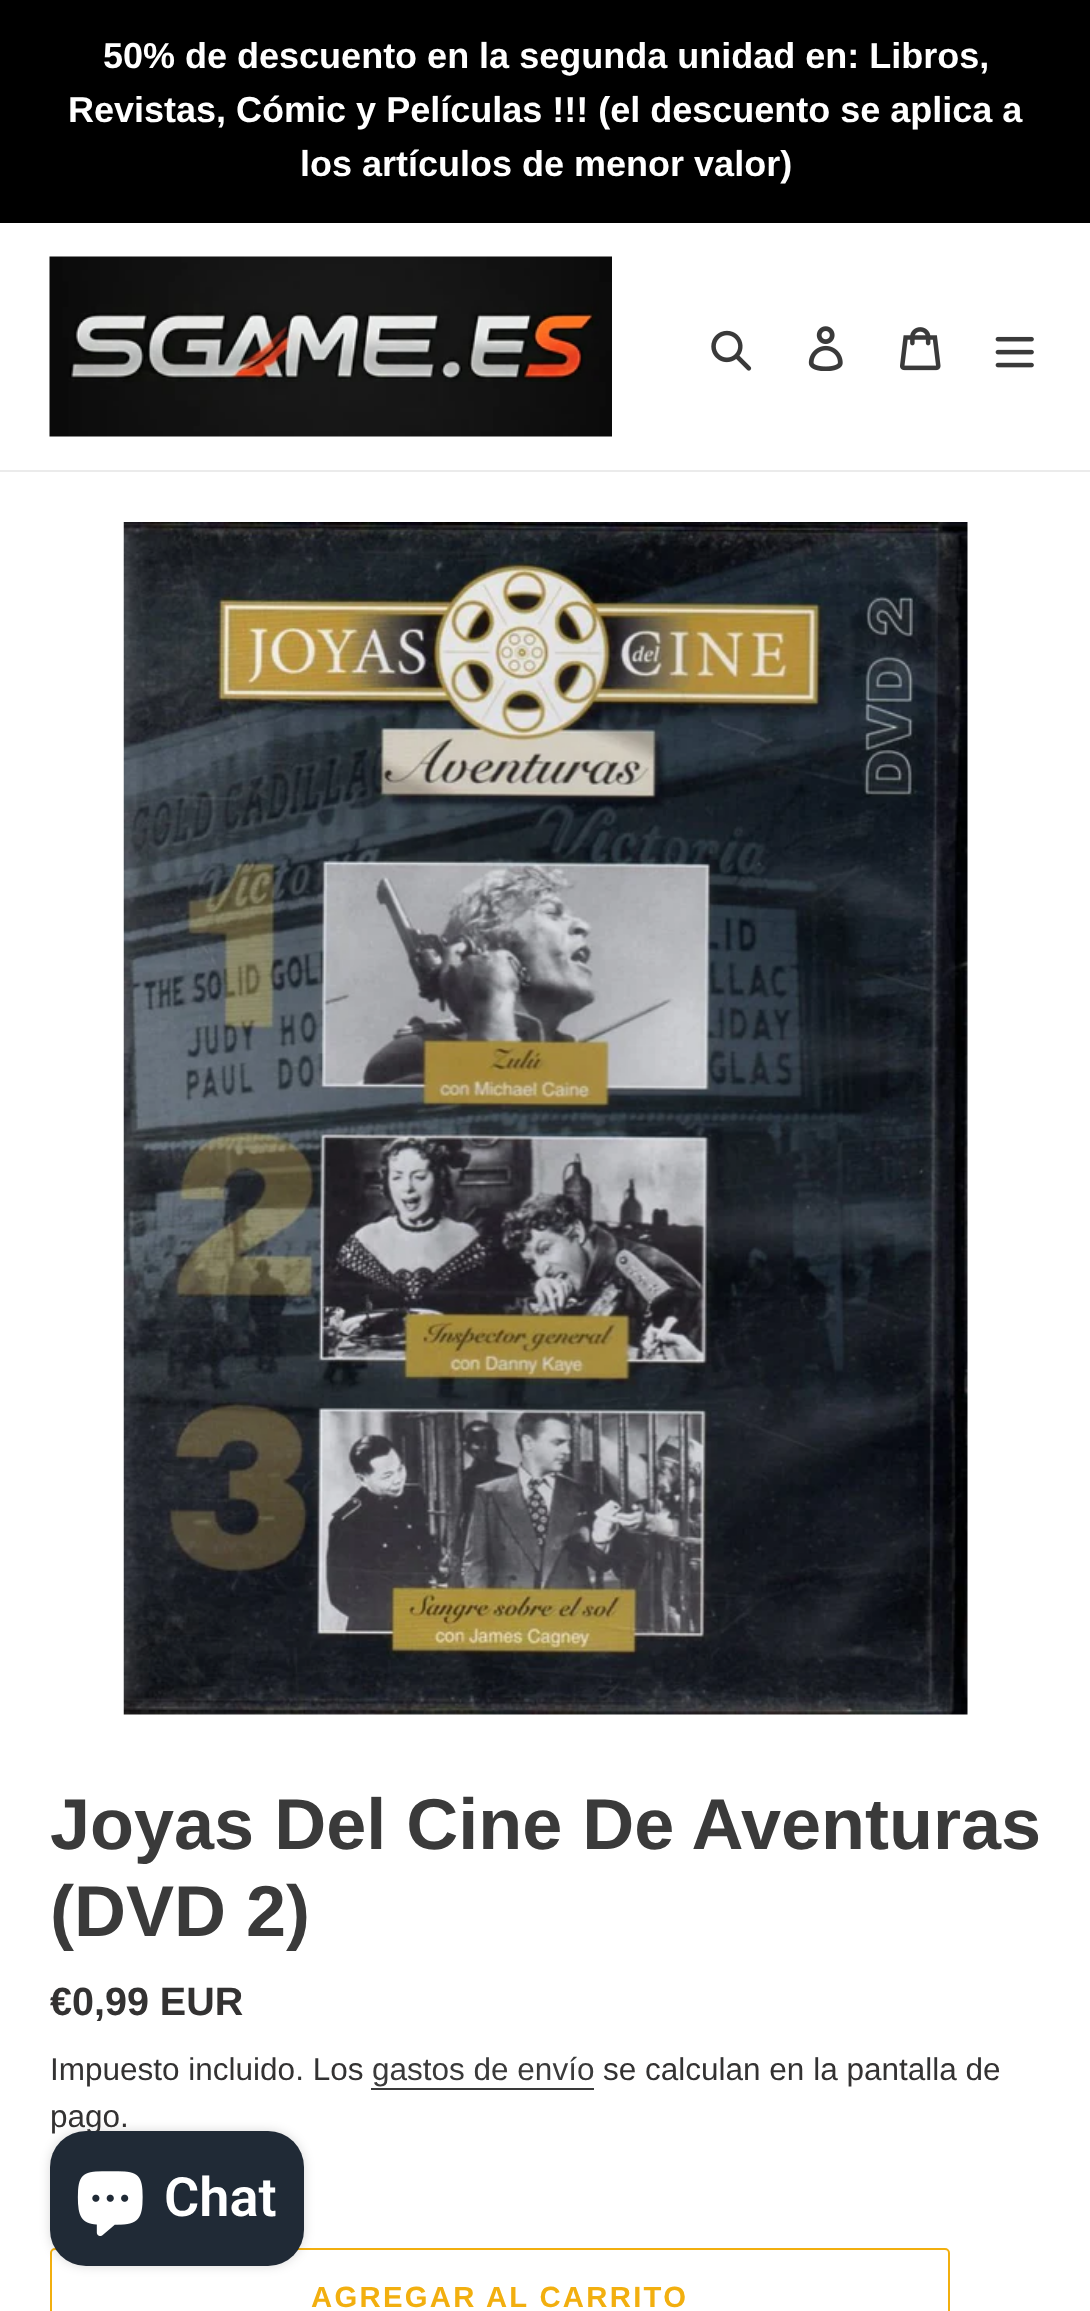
<?xml version="1.0" encoding="UTF-8"?>
<svg xmlns="http://www.w3.org/2000/svg" xmlns:xlink="http://www.w3.org/1999/xlink" width="1090" height="2311">
  <rect width="100%" height="100%" fill="#ffffff" />
  <rect width="1090" height="223" fill="#000000" />
  <rect y="470" width="1090" height="2" fill="#ebebeb" />
  <image x="49" y="256" width="563" height="181" xlink:href="image1.png" />
  <image x="711" y="330" width="41" height="41" xlink:href="image2.png" />
  <image x="808" y="326" width="35" height="45" xlink:href="image3.png" />
  <image x="900" y="327" width="41" height="44" xlink:href="image4.png" />
  <image x="995" y="336" width="39" height="32" xlink:href="image5.png" />
  <image x="123" y="522" width="845" height="1193" xlink:href="image6.png" />
  <rect x="371" y="2088" width="223" height="2" fill="#3a3a3a" />
  <rect x="51" y="2249" width="898" height="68" rx="4" fill="none" stroke="#f2af0f" stroke-width="2" />
  <rect x="50" y="2131" width="254" height="135" rx="36" fill="#000000" fill-opacity="0.15" filter="blur(5.5px)" />
  <text x="103" y="68" style="font-family: Liberation Sans; font-size: 36px; font-weight: bold; fill: #ffffff">50% de descuento en la segunda unidad en: Libros,</text>
  <text x="68" y="122" style="font-family: Liberation Sans; font-size: 36px; font-weight: bold; fill: #ffffff">Revistas, Cómic y Películas !!! (el descuento se aplica a</text>
  <text x="300" y="176" style="font-family: Liberation Sans; font-size: 36px; font-weight: bold; fill: #ffffff">los artículos de menor valor)</text>
  <text x="50" y="1849" style="font-family: Liberation Sans; font-size: 72px; font-weight: bold; fill: #3a3a3a">Joyas Del Cine De Aventuras</text>
  <text x="50" y="1936" style="font-family: Liberation Sans; font-size: 72px; font-weight: bold; fill: #3a3a3a">(DVD 2)</text>
  <text x="50" y="2015" style="font-family: Liberation Sans; font-size: 39.5px; font-weight: bold; fill: #333232">€0,99 EUR</text>
  <text x="50" y="2080" style="font-family: Liberation Sans; font-size: 31.5px; fill: #333232">Impuesto incluido. Los</text>
  <text x="372" y="2080" style="font-family: Liberation Sans; font-size: 31.5px; fill: #3a3a3a">gastos de envío</text>
  <text x="603" y="2080" style="font-family: Liberation Sans; font-size: 31.5px; fill: #333232">se calculan en la pantalla de</text>
  <text x="50" y="2127" style="font-family: Liberation Sans; font-size: 31.5px; fill: #333232">pago.</text>
  <text x="311" y="2307" style="font-family: Liberation Sans; font-size: 29.25px; font-weight: bold; letter-spacing: 2.3px; fill: #f2af0f">AGREGAR AL CARRITO</text>
  <rect x="50" y="2131" width="254" height="135" rx="36" fill="#202a36" />
  <image x="77" y="2171" width="66" height="65" xlink:href="image7.png" />
  <text x="164" y="2216" style="font-family: Roboto; font-size: 54px; font-weight: 600; fill: #ffffff">Chat</text>
</svg>
